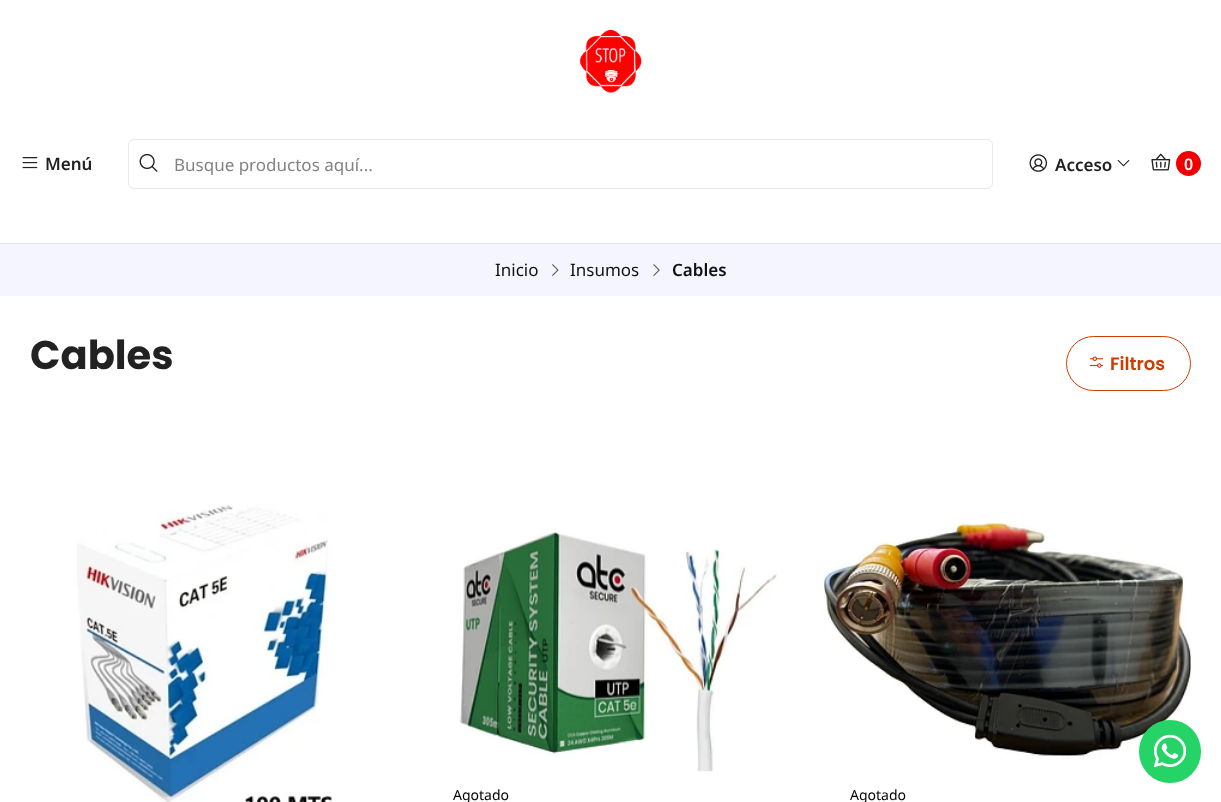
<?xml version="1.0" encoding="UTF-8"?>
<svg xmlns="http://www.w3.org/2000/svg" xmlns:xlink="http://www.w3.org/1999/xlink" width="1221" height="802">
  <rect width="100%" height="100%" fill="#ffffff" />
  <rect y="243" width="1221" height="1" fill="#e9e9e9" />
  <image x="579" y="30" width="63" height="63" xlink:href="image1.png" />
  <image x="22" y="157" width="16" height="12" xlink:href="image2.png" />
  <rect x="128.5" y="139.5" width="864" height="49" rx="5.5" fill="none" stroke="#e9e9e9" />
  <image x="139" y="153" width="19" height="19" xlink:href="image3.png" />
  <image x="1029" y="154" width="19" height="18" xlink:href="image4.png" />
  <image x="1117" y="159" width="13" height="8" xlink:href="image5.png" />
  <image x="1151" y="153" width="20" height="18" xlink:href="image6.png" />
  <circle cx="1188.5" cy="163.5" r="12.5" fill="#f00000" />
  <rect y="244" width="1221" height="52" fill="#f4f5ff" />
  <image x="552" y="264" width="7" height="12" xlink:href="image7.png" />
  <image x="653" y="264" width="7" height="12" xlink:href="image8.png" />
  <rect x="1066.5" y="336.5" width="124" height="54" rx="27" fill="none" stroke="#ca3e02" />
  <image x="1089" y="356" width="15" height="12" xlink:href="image9.png" />
  <image x="77" y="504" width="255" height="298" xlink:href="image10.png" />
  <image x="459" y="531" width="318" height="241" xlink:href="image11.png" />
  <image x="824" y="522" width="367" height="237" xlink:href="image12.png" />
  <rect x="1139" y="720" width="62" height="63" rx="31" fill="#25d366" />
  <image x="1154" y="734" width="32" height="34" xlink:href="image13.png" />
  <text x="45" y="170" style="font-family: Noto Sans; font-size: 17px; font-weight: 600; fill: #222222">Menú</text>
  <text x="174" y="171" style="font-family: Noto Sans; font-size: 17px; fill: #838383">Busque productos aquí...</text>
  <text x="1055" y="171" style="font-family: Noto Sans; font-size: 17px; font-weight: 600; fill: #222222">Acceso</text>
  <text x="1184" y="170" style="font-family: Noto Sans; font-size: 16px; font-weight: 600; fill: #fafafa">0</text>
  <text x="495" y="276" style="font-family: Noto Sans; font-size: 17px; fill: #111111">Inicio</text>
  <text x="570" y="276" style="font-family: Noto Sans; font-size: 17px; fill: #111111">Insumos</text>
  <text x="672" y="276" style="font-family: Noto Sans; font-size: 17px; font-weight: 600; fill: #111111">Cables</text>
  <text x="30" y="369" style="font-family: Poppins; font-size: 40px; font-weight: bold; fill: #222222">Cables</text>
  <text x="1110" y="370" style="font-family: Poppins; font-size: 18px; font-weight: 600; fill: #ca3e02">Filtros</text>
  <text x="453" y="800" style="font-family: Noto Sans; font-size: 14px; fill: #000000">Agotado</text>
  <text x="850" y="800" style="font-family: Noto Sans; font-size: 14px; fill: #000000">Agotado</text>
</svg>
